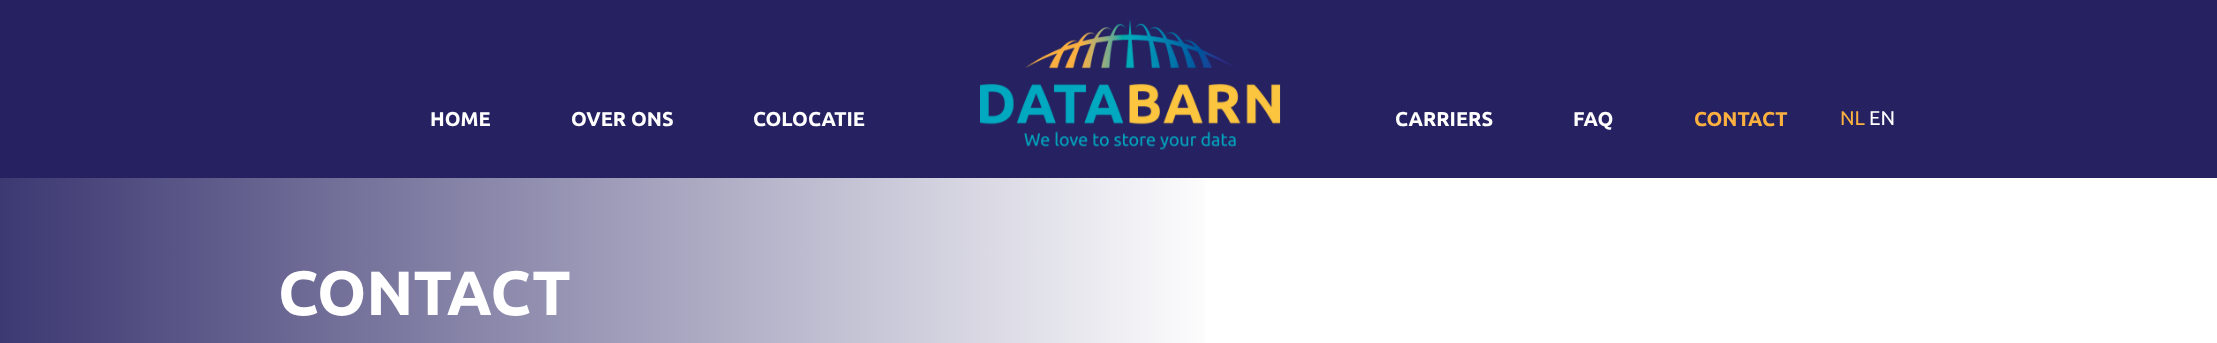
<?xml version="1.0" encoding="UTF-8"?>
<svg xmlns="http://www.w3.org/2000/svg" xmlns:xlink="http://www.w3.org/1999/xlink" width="2217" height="343">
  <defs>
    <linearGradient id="g1" gradientUnits="userSpaceOnUse" x1="0" y1="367" x2="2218" y2="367"><stop offset="0" stop-color="#3c3872" /><stop offset="0.55" stop-color="#ffffff" /></linearGradient>
  </defs>
  <rect width="100%" height="100%" fill="#ffffff" />
  <rect width="2217" height="178" fill="#262262" />
  <image x="980" y="20" width="301" height="130" xlink:href="image1.png" />
  <rect y="178" width="1205" height="165" fill="url(#g1)" />
  <text x="430" y="126" style="font-family: Ubuntu; font-size: 20px; font-weight: bold; fill: #ffffff">HOME</text>
  <text x="571" y="126" style="font-family: Ubuntu; font-size: 20px; font-weight: bold; fill: #ffffff">OVER ONS</text>
  <text x="753" y="126" style="font-family: Ubuntu; font-size: 20px; font-weight: bold; fill: #ffffff">COLOCATIE</text>
  <text x="1395" y="126" style="font-family: Ubuntu; font-size: 20px; font-weight: bold; fill: #ffffff">CARRIERS</text>
  <text x="1573" y="126" style="font-family: Ubuntu; font-size: 20px; font-weight: bold; fill: #ffffff">FAQ</text>
  <text x="1694" y="126" style="font-family: Ubuntu; font-size: 20px; font-weight: bold; fill: #fbb040">CONTACT</text>
  <text x="1840" y="125" style="font-family: Ubuntu; font-size: 20px; fill: #fbb040">NL</text>
  <text x="1869" y="125" style="font-family: Ubuntu; font-size: 20px; fill: #ffffff">EN</text>
  <text x="278" y="315" style="font-family: Ubuntu; font-size: 62.5px; font-weight: bold; fill: #ffffff">CONTACT</text>
</svg>
